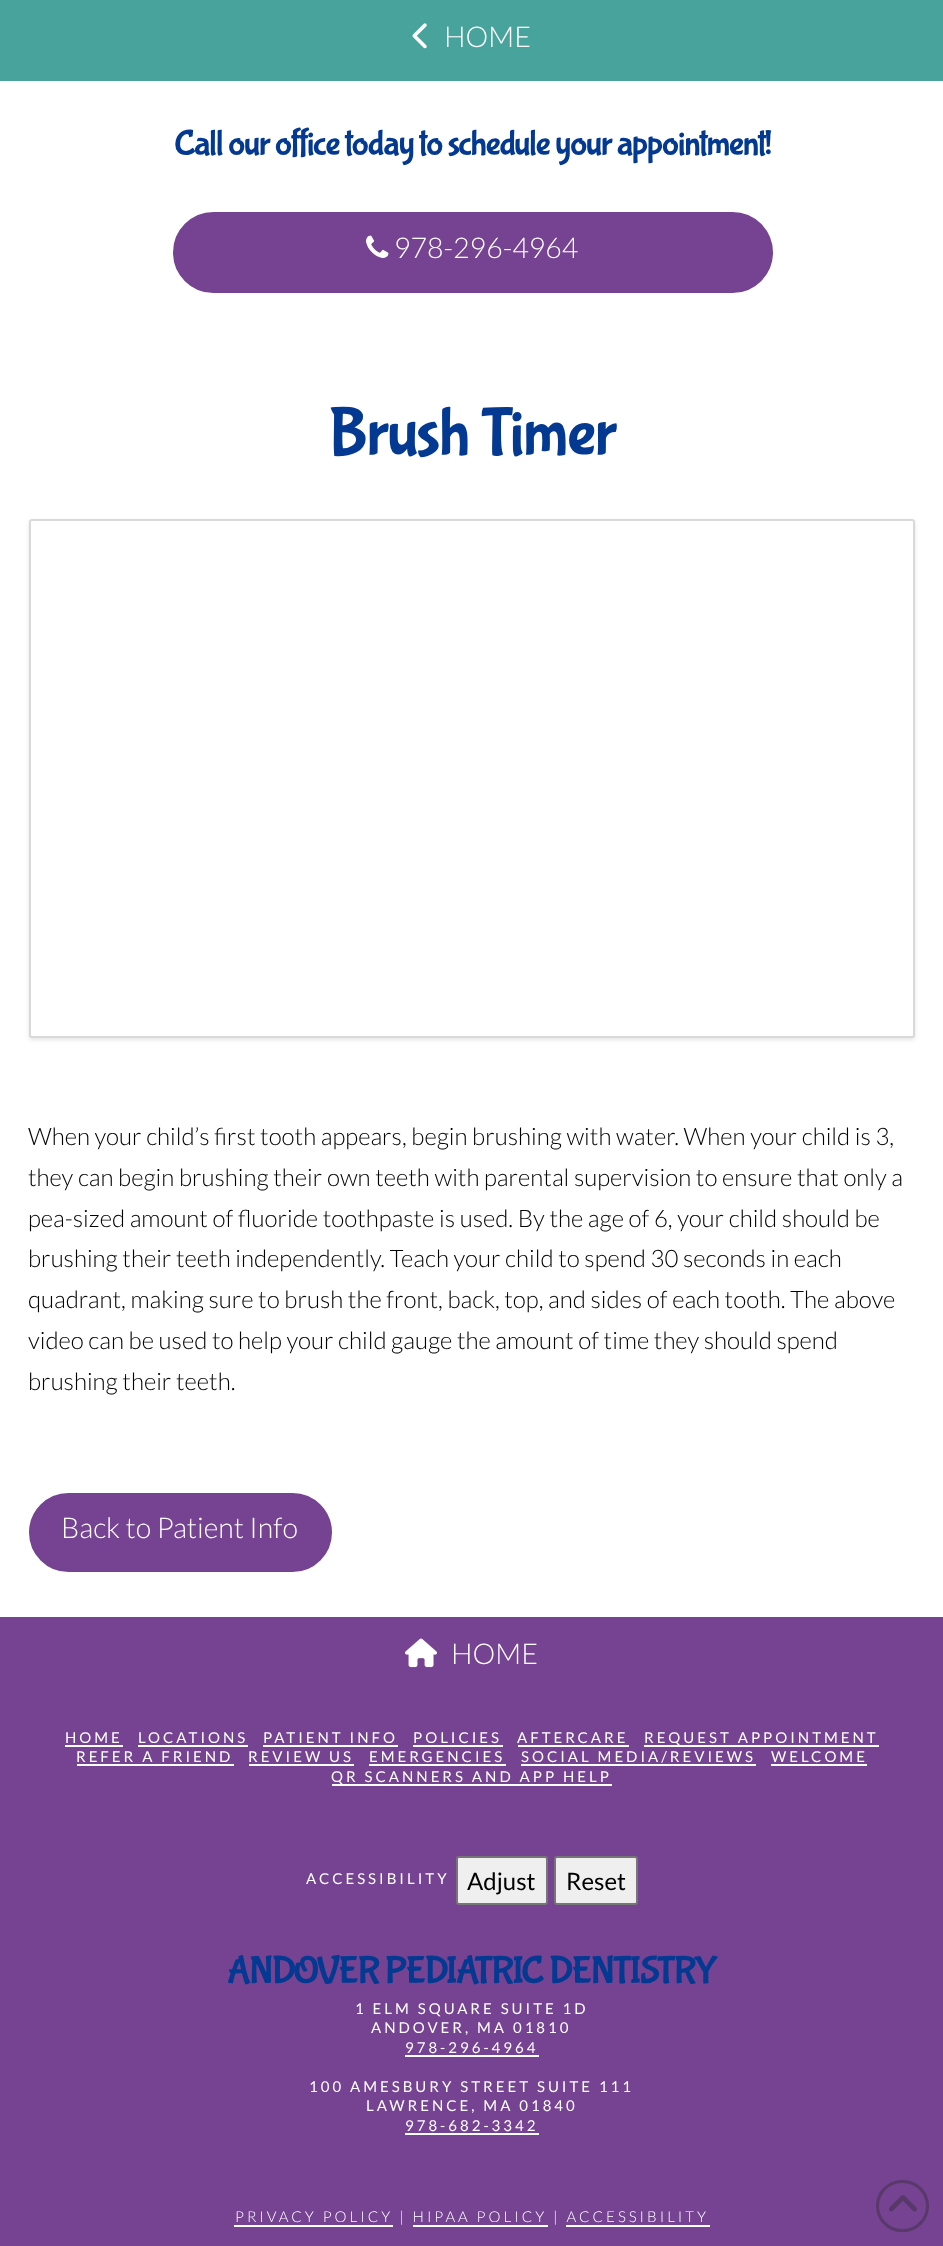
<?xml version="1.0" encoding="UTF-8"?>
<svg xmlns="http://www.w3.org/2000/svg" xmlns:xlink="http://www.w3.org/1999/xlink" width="943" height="2246">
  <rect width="100%" height="100%" fill="#48a39c" />
  <image x="412" y="23" width="15" height="26" xlink:href="image1.png" />
  <rect y="81" width="943" height="1536" fill="#ffffff" />
  <rect x="174" y="213" width="598" height="79" rx="39.5" fill="#754392" stroke="#754392" stroke-width="2" />
  <image x="366" y="235" width="23" height="23" xlink:href="image2.png" />
  <rect x="29" y="521" width="886" height="519" rx="3" fill="#000000" fill-opacity="0.1" filter="blur(2px)" />
  <rect x="29" y="519" width="886" height="519" rx="3" fill="#ffffff" />
  <rect x="30" y="520" width="884" height="517" rx="2" fill="none" stroke="#000000" stroke-opacity="0.15" stroke-width="2" />
  <rect x="30" y="1494" width="301" height="77" rx="38.5" fill="#754392" stroke="#754392" stroke-width="2" />
  <rect y="1617" width="943" height="629" fill="#754392" />
  <image x="405" y="1638" width="32" height="30" xlink:href="image3.png" />
  <rect x="65" y="1745" width="58" height="2" fill="#ffffff" />
  <rect x="138" y="1745" width="110" height="2" fill="#ffffff" />
  <rect x="263" y="1745" width="135" height="2" fill="#ffffff" />
  <rect x="413" y="1745" width="90" height="2" fill="#ffffff" />
  <rect x="518" y="1745" width="111" height="2" fill="#ffffff" />
  <rect x="644" y="1745" width="235" height="2" fill="#ffffff" />
  <rect x="77" y="1764" width="157" height="2" fill="#ffffff" />
  <rect x="249" y="1764" width="105" height="2" fill="#ffffff" />
  <rect x="369" y="1764" width="137" height="2" fill="#ffffff" />
  <rect x="521" y="1764" width="235" height="2" fill="#ffffff" />
  <rect x="771" y="1764" width="96" height="2" fill="#ffffff" />
  <rect x="332" y="1784" width="280" height="2" fill="#ffffff" />
  <rect x="457" y="1857" width="90" height="47" rx="2" fill="#efefef" stroke="#767676" stroke-width="2" />
  <rect x="555" y="1857" width="82" height="47" rx="2" fill="#efefef" stroke="#767676" stroke-width="2" />
  <rect x="405" y="2055" width="134" height="2" fill="#ffffff" />
  <rect x="405" y="2133" width="134" height="2" fill="#ffffff" />
  <rect x="234" y="2225" width="159" height="2" fill="#ffffff" />
  <rect x="413" y="2225" width="135" height="2" fill="#ffffff" />
  <rect x="566" y="2225" width="144" height="2" fill="#ffffff" />
  <rect x="877.5" y="2181.5" width="50" height="49" rx="24.5" fill="none" stroke="#58396a" stroke-width="3" />
  <image x="889" y="2195" width="28" height="17" xlink:href="image4.png" />
  <text x="444" y="47" style="font-family: Lato; font-size: 28.5px; font-weight: 300; fill: #ffffff">HOME</text>
  <text x="174" y="154" style="font-family: Bubblegum Sans; font-size: 36px; letter-spacing: -1.5px; fill: #033991">Call our office today to schedule your appointment!</text>
  <text x="394" y="258" style="font-family: Lato; font-size: 28.5px; font-weight: 300; fill: #ffffff">978-296-4964</text>
  <text x="328" y="453" style="font-family: Bubblegum Sans; font-size: 68.5px; letter-spacing: -1.5px; fill: #033991">Brush Timer</text>
  <text x="28" y="1145" style="font-family: Lato; font-size: 24px; font-weight: 300; fill: #000000">When your child’s first tooth appears, begin brushing with water. When your child is 3,</text>
  <text x="28" y="1186" style="font-family: Lato; font-size: 24px; font-weight: 300; fill: #000000">they can begin brushing their own teeth with parental supervision to ensure that only a</text>
  <text x="28" y="1227" style="font-family: Lato; font-size: 24px; font-weight: 300; fill: #000000">pea-sized amount of fluoride toothpaste is used. By the age of 6, your child should be</text>
  <text x="28" y="1267" style="font-family: Lato; font-size: 24px; font-weight: 300; fill: #000000">brushing their teeth independently. Teach your child to spend 30 seconds in each</text>
  <text x="28" y="1308" style="font-family: Lato; font-size: 24px; font-weight: 300; fill: #000000">quadrant, making sure to brush the front, back, top, and sides of each tooth. The above</text>
  <text x="28" y="1349" style="font-family: Lato; font-size: 24px; font-weight: 300; fill: #000000">video can be used to help your child gauge the amount of time they should spend</text>
  <text x="28" y="1390" style="font-family: Lato; font-size: 24px; font-weight: 300; fill: #000000">brushing their teeth.</text>
  <text x="61" y="1538" style="font-family: Lato; font-size: 28.5px; font-weight: 300; fill: #ffffff">Back to Patient Info</text>
  <text x="451" y="1664" style="font-family: Lato; font-size: 28.5px; font-weight: 300; fill: #ffffff">HOME</text>
  <text x="65" y="1743" style="font-family: Lato; font-size: 15px; letter-spacing: 3px; fill: #ffffff">HOME</text>
  <text x="138" y="1743" style="font-family: Lato; font-size: 15px; letter-spacing: 3px; fill: #ffffff">LOCATIONS</text>
  <text x="263" y="1743" style="font-family: Lato; font-size: 15px; letter-spacing: 3px; fill: #ffffff">PATIENT INFO</text>
  <text x="413" y="1743" style="font-family: Lato; font-size: 15px; letter-spacing: 3px; fill: #ffffff">POLICIES</text>
  <text x="517" y="1743" style="font-family: Lato; font-size: 15px; letter-spacing: 3px; fill: #ffffff">AFTERCARE</text>
  <text x="644" y="1743" style="font-family: Lato; font-size: 15px; letter-spacing: 3px; fill: #ffffff">REQUEST APPOINTMENT</text>
  <text x="76" y="1762" style="font-family: Lato; font-size: 15px; letter-spacing: 3px; fill: #ffffff">REFER A FRIEND</text>
  <text x="248" y="1762" style="font-family: Lato; font-size: 15px; letter-spacing: 3px; fill: #ffffff">REVIEW US</text>
  <text x="369" y="1762" style="font-family: Lato; font-size: 15px; letter-spacing: 3px; fill: #ffffff">EMERGENCIES</text>
  <text x="521" y="1762" style="font-family: Lato; font-size: 15px; letter-spacing: 3px; fill: #ffffff">SOCIAL MEDIA/REVIEWS</text>
  <text x="771" y="1762" style="font-family: Lato; font-size: 15px; letter-spacing: 3px; fill: #ffffff">WELCOME</text>
  <text x="331" y="1782" style="font-family: Lato; font-size: 15px; letter-spacing: 3px; fill: #ffffff">QR SCANNERS AND APP HELP</text>
  <text x="306" y="1884" style="font-family: Lato; font-size: 15px; letter-spacing: 3px; fill: #ffffff">ACCESSIBILITY</text>
  <text x="467" y="1890" style="font-family: Lato; font-size: 24px; fill: #000000">Adjust</text>
  <text x="566" y="1890" style="font-family: Lato; font-size: 24px; fill: #000000">Reset</text>
  <text x="227" y="1982" style="font-family: Bubblegum Sans; font-size: 39px; letter-spacing: -1.65px; fill: #033991">ANDOVER PEDIATRIC DENTISTRY</text>
  <text x="355" y="2014" style="font-family: Lato; font-size: 15px; letter-spacing: 3px; fill: #ffffff">1 ELM SQUARE SUITE 1D</text>
  <text x="371" y="2033" style="font-family: Lato; font-size: 15px; letter-spacing: 3px; fill: #ffffff">ANDOVER, MA 01810</text>
  <text x="405" y="2053" style="font-family: Lato; font-size: 15px; letter-spacing: 3px; fill: #ffffff">978-296-4964</text>
  <text x="309" y="2092" style="font-family: Lato; font-size: 15px; letter-spacing: 3px; fill: #ffffff">100 AMESBURY STREET SUITE 111</text>
  <text x="366" y="2111" style="font-family: Lato; font-size: 15px; letter-spacing: 3px; fill: #ffffff">LAWRENCE, MA 01840</text>
  <text x="405" y="2131" style="font-family: Lato; font-size: 15px; letter-spacing: 3px; fill: #ffffff">978-682-3342</text>
  <text x="235" y="2222" style="font-family: Lato; font-size: 15px; font-weight: 300; letter-spacing: 3px; fill: #ffffff">PRIVACY POLICY | HIPAA POLICY | ACCESSIBILITY</text>
</svg>
